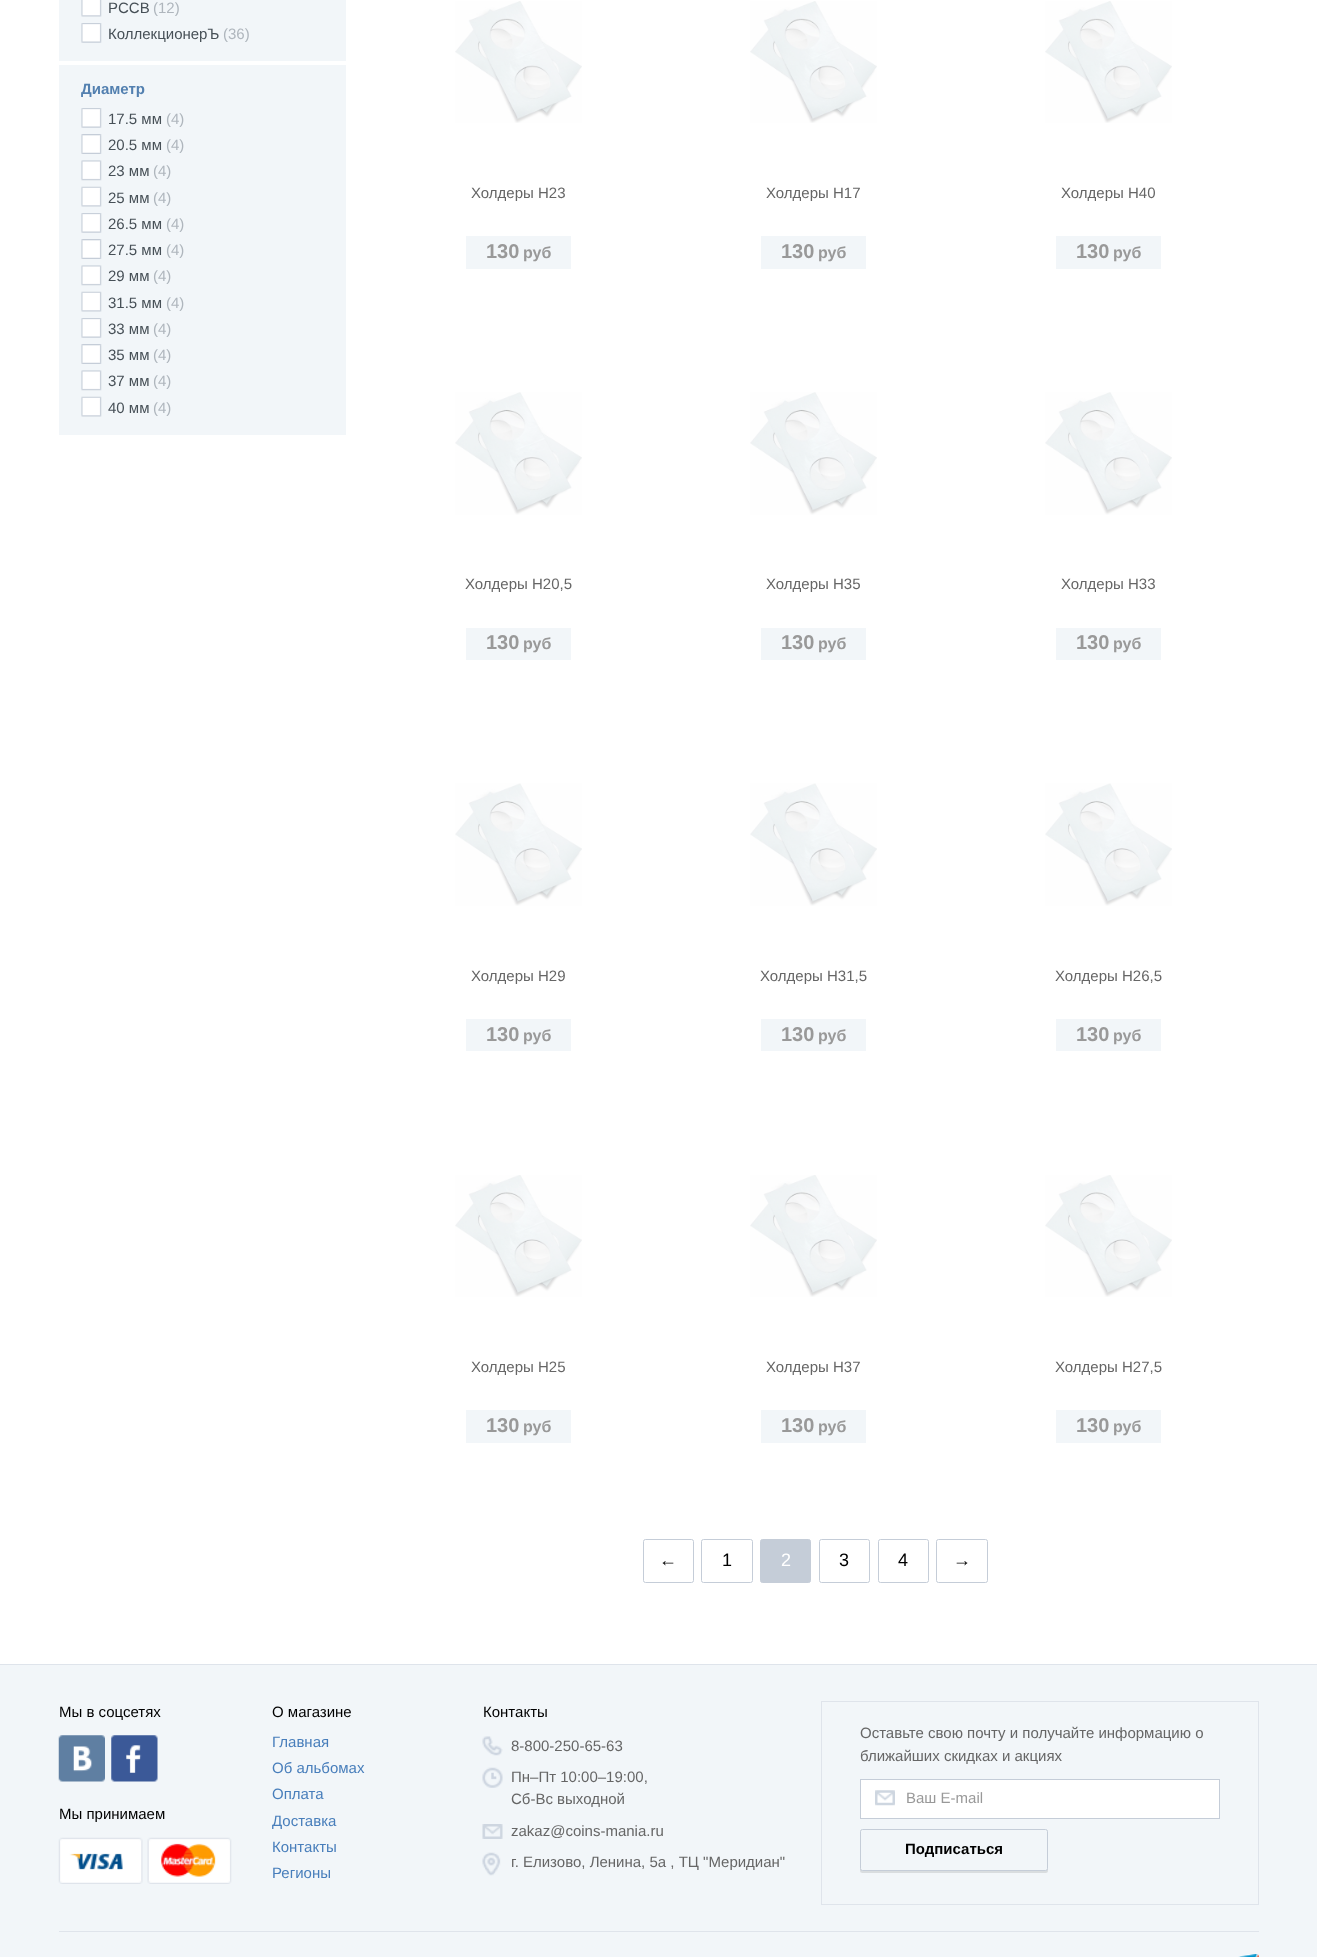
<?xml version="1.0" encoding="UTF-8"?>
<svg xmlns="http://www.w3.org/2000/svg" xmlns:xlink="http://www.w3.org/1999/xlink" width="1317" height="1957">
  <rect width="100%" height="100%" fill="#ffffff" />
  <rect x="59" width="287" height="435" fill="#f2f6f9" />
  <image x="81" y="0" width="21" height="17" xlink:href="image1.png" />
  <image x="81" y="23" width="21" height="20" xlink:href="image2.png" />
  <rect x="59" y="61" width="287" height="4" fill="#ffffff" />
  <image x="81" y="108" width="21" height="20" xlink:href="image2.png" />
  <image x="81" y="134" width="21" height="20" xlink:href="image3.png" />
  <image x="81" y="160" width="21" height="21" xlink:href="image4.png" />
  <image x="81" y="186" width="21" height="21" xlink:href="image5.png" />
  <image x="81" y="213" width="21" height="20" xlink:href="image2.png" />
  <image x="81" y="239" width="21" height="20" xlink:href="image3.png" />
  <image x="81" y="265" width="21" height="21" xlink:href="image4.png" />
  <image x="81" y="291" width="21" height="21" xlink:href="image5.png" />
  <image x="81" y="318" width="21" height="20" xlink:href="image2.png" />
  <image x="81" y="344" width="21" height="20" xlink:href="image3.png" />
  <image x="81" y="370" width="21" height="21" xlink:href="image4.png" />
  <image x="81" y="396" width="21" height="21" xlink:href="image5.png" />
  <image x="455" y="1" width="127" height="122" xlink:href="image6.png" />
  <rect x="466" y="236" width="105" height="33" fill="#f2f6f9" />
  <image x="750" y="1" width="127" height="122" xlink:href="image6.png" />
  <rect x="761" y="236" width="105" height="33" fill="#f2f6f9" />
  <image x="1045" y="1" width="127" height="122" xlink:href="image6.png" />
  <rect x="1056" y="236" width="105" height="33" fill="#f2f6f9" />
  <image x="455" y="392" width="127" height="123" xlink:href="image7.png" />
  <rect x="466" y="628" width="105" height="32" fill="#f2f6f9" />
  <image x="750" y="392" width="127" height="123" xlink:href="image7.png" />
  <rect x="761" y="628" width="105" height="32" fill="#f2f6f9" />
  <image x="1045" y="392" width="127" height="123" xlink:href="image7.png" />
  <rect x="1056" y="628" width="105" height="32" fill="#f2f6f9" />
  <image x="455" y="783" width="127" height="123" xlink:href="image8.png" />
  <rect x="466" y="1019" width="105" height="32" fill="#f2f6f9" />
  <image x="750" y="783" width="127" height="123" xlink:href="image8.png" />
  <rect x="761" y="1019" width="105" height="32" fill="#f2f6f9" />
  <image x="1045" y="783" width="127" height="123" xlink:href="image8.png" />
  <rect x="1056" y="1019" width="105" height="32" fill="#f2f6f9" />
  <image x="455" y="1175" width="127" height="122" xlink:href="image9.png" />
  <rect x="466" y="1410" width="105" height="33" fill="#f2f6f9" />
  <image x="750" y="1175" width="127" height="122" xlink:href="image9.png" />
  <rect x="761" y="1410" width="105" height="33" fill="#f2f6f9" />
  <image x="1045" y="1175" width="127" height="122" xlink:href="image9.png" />
  <rect x="1056" y="1410" width="105" height="33" fill="#f2f6f9" />
  <rect x="643.5" y="1539.5" width="50" height="43" rx="2" fill="none" stroke="#c5cdd8" />
  <rect x="701.5" y="1539.5" width="51" height="43" rx="2" fill="none" stroke="#c5cdd8" />
  <rect x="760.5" y="1539.5" width="50" height="43" rx="2" fill="#c5cdd8" stroke="#c5cdd8" />
  <rect x="819.5" y="1539.5" width="50" height="43" rx="2" fill="none" stroke="#c5cdd8" />
  <rect x="878.5" y="1539.5" width="50" height="43" rx="2" fill="none" stroke="#c5cdd8" />
  <rect x="936.5" y="1539.5" width="51" height="43" rx="2" fill="none" stroke="#c5cdd8" />
  <rect y="1665" width="1317" height="292" fill="#f2f6f9" />
  <rect y="1664" width="1317" height="1" fill="#dfe4eb" />
  <image x="58" y="1735" width="47" height="47" xlink:href="image10.png" />
  <image x="111" y="1735" width="47" height="47" xlink:href="image11.png" />
  <image x="58" y="1837" width="85" height="47" xlink:href="image12.png" />
  <image x="147" y="1837" width="85" height="47" xlink:href="image13.png" />
  <image x="482" y="1736" width="21" height="20" xlink:href="image14.png" />
  <image x="482" y="1767" width="21" height="21" xlink:href="image15.png" />
  <image x="482" y="1824" width="21" height="15" xlink:href="image16.png" />
  <image x="482" y="1852" width="19" height="24" xlink:href="image17.png" />
  <rect x="821.5" y="1701.5" width="437" height="203" fill="none" stroke="#dfe4eb" />
  <rect x="860.5" y="1779.5" width="359" height="39" fill="#ffffff" stroke="#c5cdd8" />
  <image x="875" y="1790" width="20" height="16" xlink:href="image18.png" />
  <rect x="860" y="1830" width="188" height="43" rx="2.5" fill="#000000" fill-opacity="0.1" filter="blur(0.5px)" />
  <rect x="860.5" y="1829.5" width="187" height="41" rx="2" fill="#f2f6f9" stroke="#c5cdd8" />
  <rect x="59" y="1931" width="1200" height="1" fill="#dfe4eb" />
  <image x="1238" y="1954" width="21" height="3" xlink:href="image19.png" />
  <text x="108" y="13" style="font-family: Liberation Sans; font-size: 15px; fill: #475057">PCCB</text>
  <text x="153" y="13" style="font-family: Liberation Sans; font-size: 15px; fill: #afb6bd">(12)</text>
  <text x="108" y="39" style="font-family: Liberation Sans; font-size: 15px; fill: #475057">КоллекционерЪ</text>
  <text x="223" y="39" style="font-family: Liberation Sans; font-size: 15px; fill: #afb6bd">(36)</text>
  <text x="81" y="94" style="font-family: Liberation Sans; font-size: 15px; font-weight: bold; fill: #5380b0">Диаметр</text>
  <text x="108" y="124" style="font-family: Liberation Sans; font-size: 15px; fill: #475057">17.5 мм</text>
  <text x="166" y="124" style="font-family: Liberation Sans; font-size: 15px; fill: #afb6bd">(4)</text>
  <text x="108" y="150" style="font-family: Liberation Sans; font-size: 15px; fill: #475057">20.5 мм</text>
  <text x="166" y="150" style="font-family: Liberation Sans; font-size: 15px; fill: #afb6bd">(4)</text>
  <text x="108" y="176" style="font-family: Liberation Sans; font-size: 15px; fill: #475057">23 мм</text>
  <text x="153" y="176" style="font-family: Liberation Sans; font-size: 15px; fill: #afb6bd">(4)</text>
  <text x="108" y="203" style="font-family: Liberation Sans; font-size: 15px; fill: #475057">25 мм</text>
  <text x="153" y="203" style="font-family: Liberation Sans; font-size: 15px; fill: #afb6bd">(4)</text>
  <text x="108" y="229" style="font-family: Liberation Sans; font-size: 15px; fill: #475057">26.5 мм</text>
  <text x="166" y="229" style="font-family: Liberation Sans; font-size: 15px; fill: #afb6bd">(4)</text>
  <text x="108" y="255" style="font-family: Liberation Sans; font-size: 15px; fill: #475057">27.5 мм</text>
  <text x="166" y="255" style="font-family: Liberation Sans; font-size: 15px; fill: #afb6bd">(4)</text>
  <text x="108" y="281" style="font-family: Liberation Sans; font-size: 15px; fill: #475057">29 мм</text>
  <text x="153" y="281" style="font-family: Liberation Sans; font-size: 15px; fill: #afb6bd">(4)</text>
  <text x="108" y="308" style="font-family: Liberation Sans; font-size: 15px; fill: #475057">31.5 мм</text>
  <text x="166" y="308" style="font-family: Liberation Sans; font-size: 15px; fill: #afb6bd">(4)</text>
  <text x="108" y="334" style="font-family: Liberation Sans; font-size: 15px; fill: #475057">33 мм</text>
  <text x="153" y="334" style="font-family: Liberation Sans; font-size: 15px; fill: #afb6bd">(4)</text>
  <text x="108" y="360" style="font-family: Liberation Sans; font-size: 15px; fill: #475057">35 мм</text>
  <text x="153" y="360" style="font-family: Liberation Sans; font-size: 15px; fill: #afb6bd">(4)</text>
  <text x="108" y="386" style="font-family: Liberation Sans; font-size: 15px; fill: #475057">37 мм</text>
  <text x="153" y="386" style="font-family: Liberation Sans; font-size: 15px; fill: #afb6bd">(4)</text>
  <text x="108" y="413" style="font-family: Liberation Sans; font-size: 15px; fill: #475057">40 мм</text>
  <text x="153" y="413" style="font-family: Liberation Sans; font-size: 15px; fill: #afb6bd">(4)</text>
  <text x="471" y="198" style="font-family: Liberation Sans; font-size: 15px; fill: #666666">Холдеры Н23</text>
  <text x="486" y="258" style="font-family: Liberation Sans; font-size: 20px; font-weight: bold; fill: #999999">130</text>
  <text x="523" y="258" style="font-family: Liberation Sans; font-size: 16px; font-weight: bold; fill: #999999">руб</text>
  <text x="766" y="198" style="font-family: Liberation Sans; font-size: 15px; fill: #666666">Холдеры Н17</text>
  <text x="781" y="258" style="font-family: Liberation Sans; font-size: 20px; font-weight: bold; fill: #999999">130</text>
  <text x="818" y="258" style="font-family: Liberation Sans; font-size: 16px; font-weight: bold; fill: #999999">руб</text>
  <text x="1061" y="198" style="font-family: Liberation Sans; font-size: 15px; fill: #666666">Холдеры Н40</text>
  <text x="1076" y="258" style="font-family: Liberation Sans; font-size: 20px; font-weight: bold; fill: #999999">130</text>
  <text x="1113" y="258" style="font-family: Liberation Sans; font-size: 16px; font-weight: bold; fill: #999999">руб</text>
  <text x="465" y="589" style="font-family: Liberation Sans; font-size: 15px; fill: #666666">Холдеры Н20,5</text>
  <text x="486" y="649" style="font-family: Liberation Sans; font-size: 20px; font-weight: bold; fill: #999999">130</text>
  <text x="523" y="649" style="font-family: Liberation Sans; font-size: 16px; font-weight: bold; fill: #999999">руб</text>
  <text x="766" y="589" style="font-family: Liberation Sans; font-size: 15px; fill: #666666">Холдеры Н35</text>
  <text x="781" y="649" style="font-family: Liberation Sans; font-size: 20px; font-weight: bold; fill: #999999">130</text>
  <text x="818" y="649" style="font-family: Liberation Sans; font-size: 16px; font-weight: bold; fill: #999999">руб</text>
  <text x="1061" y="589" style="font-family: Liberation Sans; font-size: 15px; fill: #666666">Холдеры Н33</text>
  <text x="1076" y="649" style="font-family: Liberation Sans; font-size: 20px; font-weight: bold; fill: #999999">130</text>
  <text x="1113" y="649" style="font-family: Liberation Sans; font-size: 16px; font-weight: bold; fill: #999999">руб</text>
  <text x="471" y="981" style="font-family: Liberation Sans; font-size: 15px; fill: #666666">Холдеры Н29</text>
  <text x="486" y="1041" style="font-family: Liberation Sans; font-size: 20px; font-weight: bold; fill: #999999">130</text>
  <text x="523" y="1041" style="font-family: Liberation Sans; font-size: 16px; font-weight: bold; fill: #999999">руб</text>
  <text x="760" y="981" style="font-family: Liberation Sans; font-size: 15px; fill: #666666">Холдеры Н31,5</text>
  <text x="781" y="1041" style="font-family: Liberation Sans; font-size: 20px; font-weight: bold; fill: #999999">130</text>
  <text x="818" y="1041" style="font-family: Liberation Sans; font-size: 16px; font-weight: bold; fill: #999999">руб</text>
  <text x="1055" y="981" style="font-family: Liberation Sans; font-size: 15px; fill: #666666">Холдеры Н26,5</text>
  <text x="1076" y="1041" style="font-family: Liberation Sans; font-size: 20px; font-weight: bold; fill: #999999">130</text>
  <text x="1113" y="1041" style="font-family: Liberation Sans; font-size: 16px; font-weight: bold; fill: #999999">руб</text>
  <text x="471" y="1372" style="font-family: Liberation Sans; font-size: 15px; fill: #666666">Холдеры Н25</text>
  <text x="486" y="1432" style="font-family: Liberation Sans; font-size: 20px; font-weight: bold; fill: #999999">130</text>
  <text x="523" y="1432" style="font-family: Liberation Sans; font-size: 16px; font-weight: bold; fill: #999999">руб</text>
  <text x="766" y="1372" style="font-family: Liberation Sans; font-size: 15px; fill: #666666">Холдеры Н37</text>
  <text x="781" y="1432" style="font-family: Liberation Sans; font-size: 20px; font-weight: bold; fill: #999999">130</text>
  <text x="818" y="1432" style="font-family: Liberation Sans; font-size: 16px; font-weight: bold; fill: #999999">руб</text>
  <text x="1055" y="1372" style="font-family: Liberation Sans; font-size: 15px; fill: #666666">Холдеры Н27,5</text>
  <text x="1076" y="1432" style="font-family: Liberation Sans; font-size: 20px; font-weight: bold; fill: #999999">130</text>
  <text x="1113" y="1432" style="font-family: Liberation Sans; font-size: 16px; font-weight: bold; fill: #999999">руб</text>
  <text x="659" y="1566" style="font-family: Liberation Sans; font-size: 18px; fill: #000000">←</text>
  <text x="722" y="1566" style="font-family: Liberation Sans; font-size: 18px; fill: #000000">1</text>
  <text x="781" y="1566" style="font-family: Liberation Sans; font-size: 18px; fill: #ffffff">2</text>
  <text x="839" y="1566" style="font-family: Liberation Sans; font-size: 18px; fill: #000000">3</text>
  <text x="898" y="1566" style="font-family: Liberation Sans; font-size: 18px; fill: #000000">4</text>
  <text x="953" y="1566" style="font-family: Liberation Sans; font-size: 18px; fill: #000000">→</text>
  <text x="59" y="1717" style="font-family: Liberation Sans; font-size: 15px; fill: #000000">Мы в соцсетях</text>
  <text x="59" y="1819" style="font-family: Liberation Sans; font-size: 15px; fill: #000000">Мы принимаем</text>
  <text x="272" y="1717" style="font-family: Liberation Sans; font-size: 15px; fill: #000000">О магазине</text>
  <text x="272" y="1747" style="font-family: Liberation Sans; font-size: 15px; fill: #487ebb">Главная</text>
  <text x="272" y="1773" style="font-family: Liberation Sans; font-size: 15px; fill: #487ebb">Об альбомах</text>
  <text x="272" y="1799" style="font-family: Liberation Sans; font-size: 15px; fill: #487ebb">Оплата</text>
  <text x="272" y="1826" style="font-family: Liberation Sans; font-size: 15px; fill: #487ebb">Доставка</text>
  <text x="272" y="1852" style="font-family: Liberation Sans; font-size: 15px; fill: #487ebb">Контакты</text>
  <text x="272" y="1878" style="font-family: Liberation Sans; font-size: 15px; fill: #487ebb">Регионы</text>
  <text x="483" y="1717" style="font-family: Liberation Sans; font-size: 15px; fill: #000000">Контакты</text>
  <text x="511" y="1751" style="font-family: Liberation Sans; font-size: 15px; fill: #666666">8-800-250-65-63</text>
  <text x="511" y="1782" style="font-family: Liberation Sans; font-size: 15px; fill: #666666">Пн–Пт 10:00–19:00,</text>
  <text x="511" y="1804" style="font-family: Liberation Sans; font-size: 15px; fill: #666666">Сб-Вс выходной</text>
  <text x="511" y="1836" style="font-family: Liberation Sans; font-size: 15px; fill: #666666">zakaz@coins-mania.ru</text>
  <text x="511" y="1867" style="font-family: Liberation Sans; font-size: 15px; fill: #666666">г. Елизово, Ленина, 5а , ТЦ "Меридиан"</text>
  <text x="860" y="1738" style="font-family: Liberation Sans; font-size: 15px; fill: #666666">Оставьте свою почту и получайте информацию о</text>
  <text x="860" y="1761" style="font-family: Liberation Sans; font-size: 15px; fill: #666666">ближайших скидках и акциях</text>
  <text x="906" y="1803" style="font-family: Liberation Sans; font-size: 15px; fill: #999999">Ваш E-mail</text>
  <text x="905" y="1854" style="font-family: Liberation Sans; font-size: 15px; font-weight: bold; fill: #000000">Подписаться</text>
</svg>
